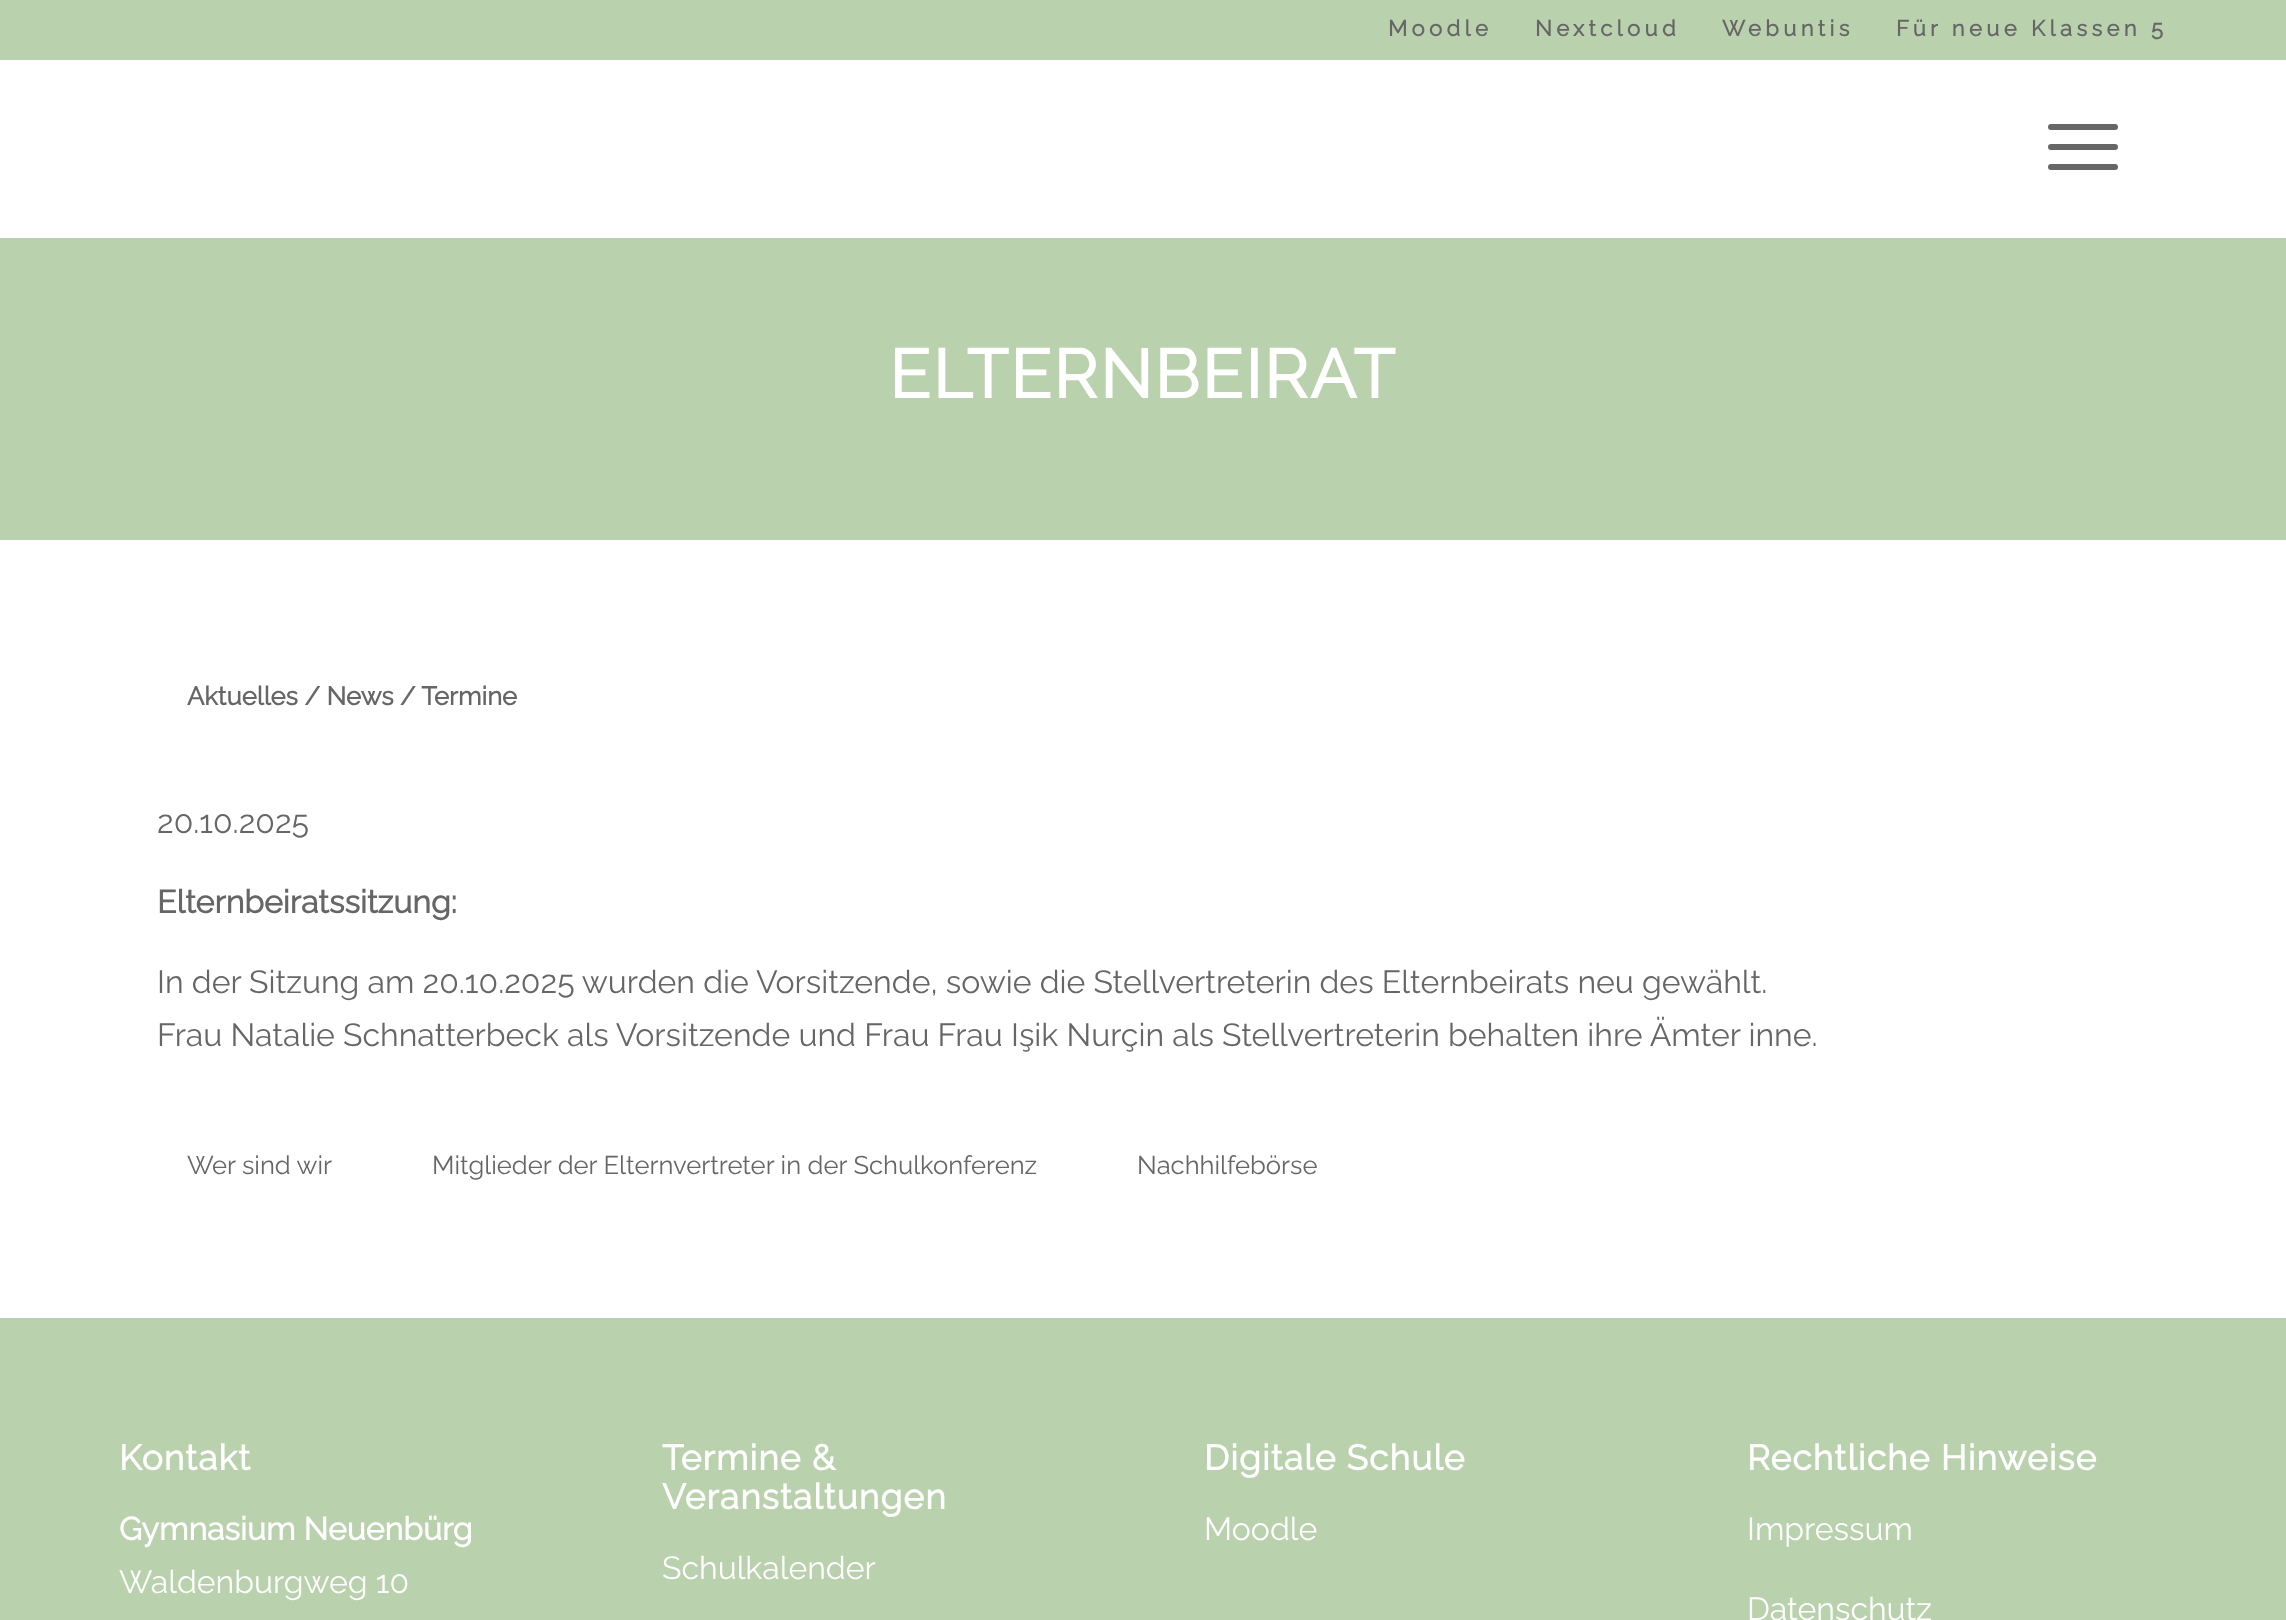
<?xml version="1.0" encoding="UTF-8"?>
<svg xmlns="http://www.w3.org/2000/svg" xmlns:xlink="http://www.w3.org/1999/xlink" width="2286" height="1620">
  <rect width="100%" height="100%" fill="#ffffff" />
  <rect width="2286" height="60" fill="#bad1ad" />
  <rect x="2048" y="144" width="70" height="6" rx="3" fill="#666666" />
  <rect x="2048" y="124" width="70" height="6" rx="3" fill="#666666" />
  <rect x="2048" y="164" width="70" height="6" rx="3" fill="#666666" />
  <rect y="238" width="2286" height="302" fill="#bad1ad" />
  <rect y="1318" width="2286" height="302" fill="#bad1ad" />
  <text x="1388" y="36" style="font-family: Raleway; font-size: 22px; font-weight: bold; letter-spacing: 4.4px; fill: #666666">Moodle</text>
  <text x="1535" y="36" style="font-family: Raleway; font-size: 22px; font-weight: bold; letter-spacing: 4.4px; fill: #666666">Nextcloud</text>
  <text x="1722" y="36" style="font-family: Raleway; font-size: 22px; font-weight: bold; letter-spacing: 4.4px; fill: #666666">Webuntis</text>
  <text x="1896" y="36" style="font-family: Raleway; font-size: 22px; font-weight: bold; letter-spacing: 4.4px; fill: #666666">Für neue Klassen 5</text>
  <text x="889" y="398" style="font-family: Raleway; font-size: 68px; font-weight: bold; letter-spacing: 2px; fill: #ffffff">ELTERNBEIRAT</text>
  <text x="187" y="705" style="font-family: Raleway; font-size: 25.6px; font-weight: bold; fill: #666666">Aktuelles / News / Termine</text>
  <text x="157" y="833" style="font-family: Raleway; font-size: 32px; font-weight: 100; fill: #666666">20.10.2025</text>
  <text x="157" y="913" style="font-family: Raleway; font-size: 32px; font-weight: bold; fill: #666666">Elternbeiratssitzung:</text>
  <text x="157" y="993" style="font-family: Raleway; font-size: 32px; font-weight: 100; fill: #666666">In der Sitzung am 20.10.2025 wurden die Vorsitzende, sowie die Stellvertreterin des Elternbeirats neu gewählt.</text>
  <text x="157" y="1046" style="font-family: Raleway; font-size: 32px; font-weight: 100; fill: #666666">Frau Natalie Schnatterbeck als Vorsitzende und Frau Frau Işik Nurçin als Stellvertreterin behalten ihre Ämter inne.</text>
  <text x="187" y="1174" style="font-family: Raleway; font-size: 25.6px; font-weight: 100; fill: #666666">Wer sind wir</text>
  <text x="432" y="1174" style="font-family: Raleway; font-size: 25.6px; font-weight: 100; fill: #666666">Mitglieder der Elternvertreter in der Schulkonferenz</text>
  <text x="1137" y="1174" style="font-family: Raleway; font-size: 25.6px; font-weight: 100; fill: #666666">Nachhilfebörse</text>
  <text x="119" y="1470" style="font-family: Raleway; font-size: 35.25px; font-weight: bold; letter-spacing: 1.1px; fill: #ffffff">Kontakt</text>
  <text x="119" y="1540" style="font-family: Raleway; font-size: 32px; font-weight: bold; fill: #ffffff">Gymnasium Neuenbürg</text>
  <text x="119" y="1593" style="font-family: Raleway; font-size: 32px; font-weight: 100; fill: #ffffff">Waldenburgweg 10</text>
  <text x="662" y="1470" style="font-family: Raleway; font-size: 35.25px; font-weight: bold; letter-spacing: 1.1px; fill: #ffffff">Termine &amp;</text>
  <text x="662" y="1509" style="font-family: Raleway; font-size: 35.25px; font-weight: bold; letter-spacing: 1.1px; fill: #ffffff">Veranstaltungen</text>
  <text x="662" y="1579" style="font-family: Raleway; font-size: 32px; font-weight: 100; fill: #ffffff">Schulkalender</text>
  <text x="1204" y="1470" style="font-family: Raleway; font-size: 35.25px; font-weight: bold; letter-spacing: 1.1px; fill: #ffffff">Digitale Schule</text>
  <text x="1204" y="1540" style="font-family: Raleway; font-size: 32px; font-weight: 100; fill: #ffffff">Moodle</text>
  <text x="1747" y="1470" style="font-family: Raleway; font-size: 35.25px; font-weight: bold; letter-spacing: 1.1px; fill: #ffffff">Rechtliche Hinweise</text>
  <text x="1747" y="1540" style="font-family: Raleway; font-size: 32px; font-weight: 100; fill: #ffffff">Impressum</text>
  <text x="1747" y="1620" style="font-family: Raleway; font-size: 32px; font-weight: 100; fill: #ffffff">Datenschutz</text>
</svg>
